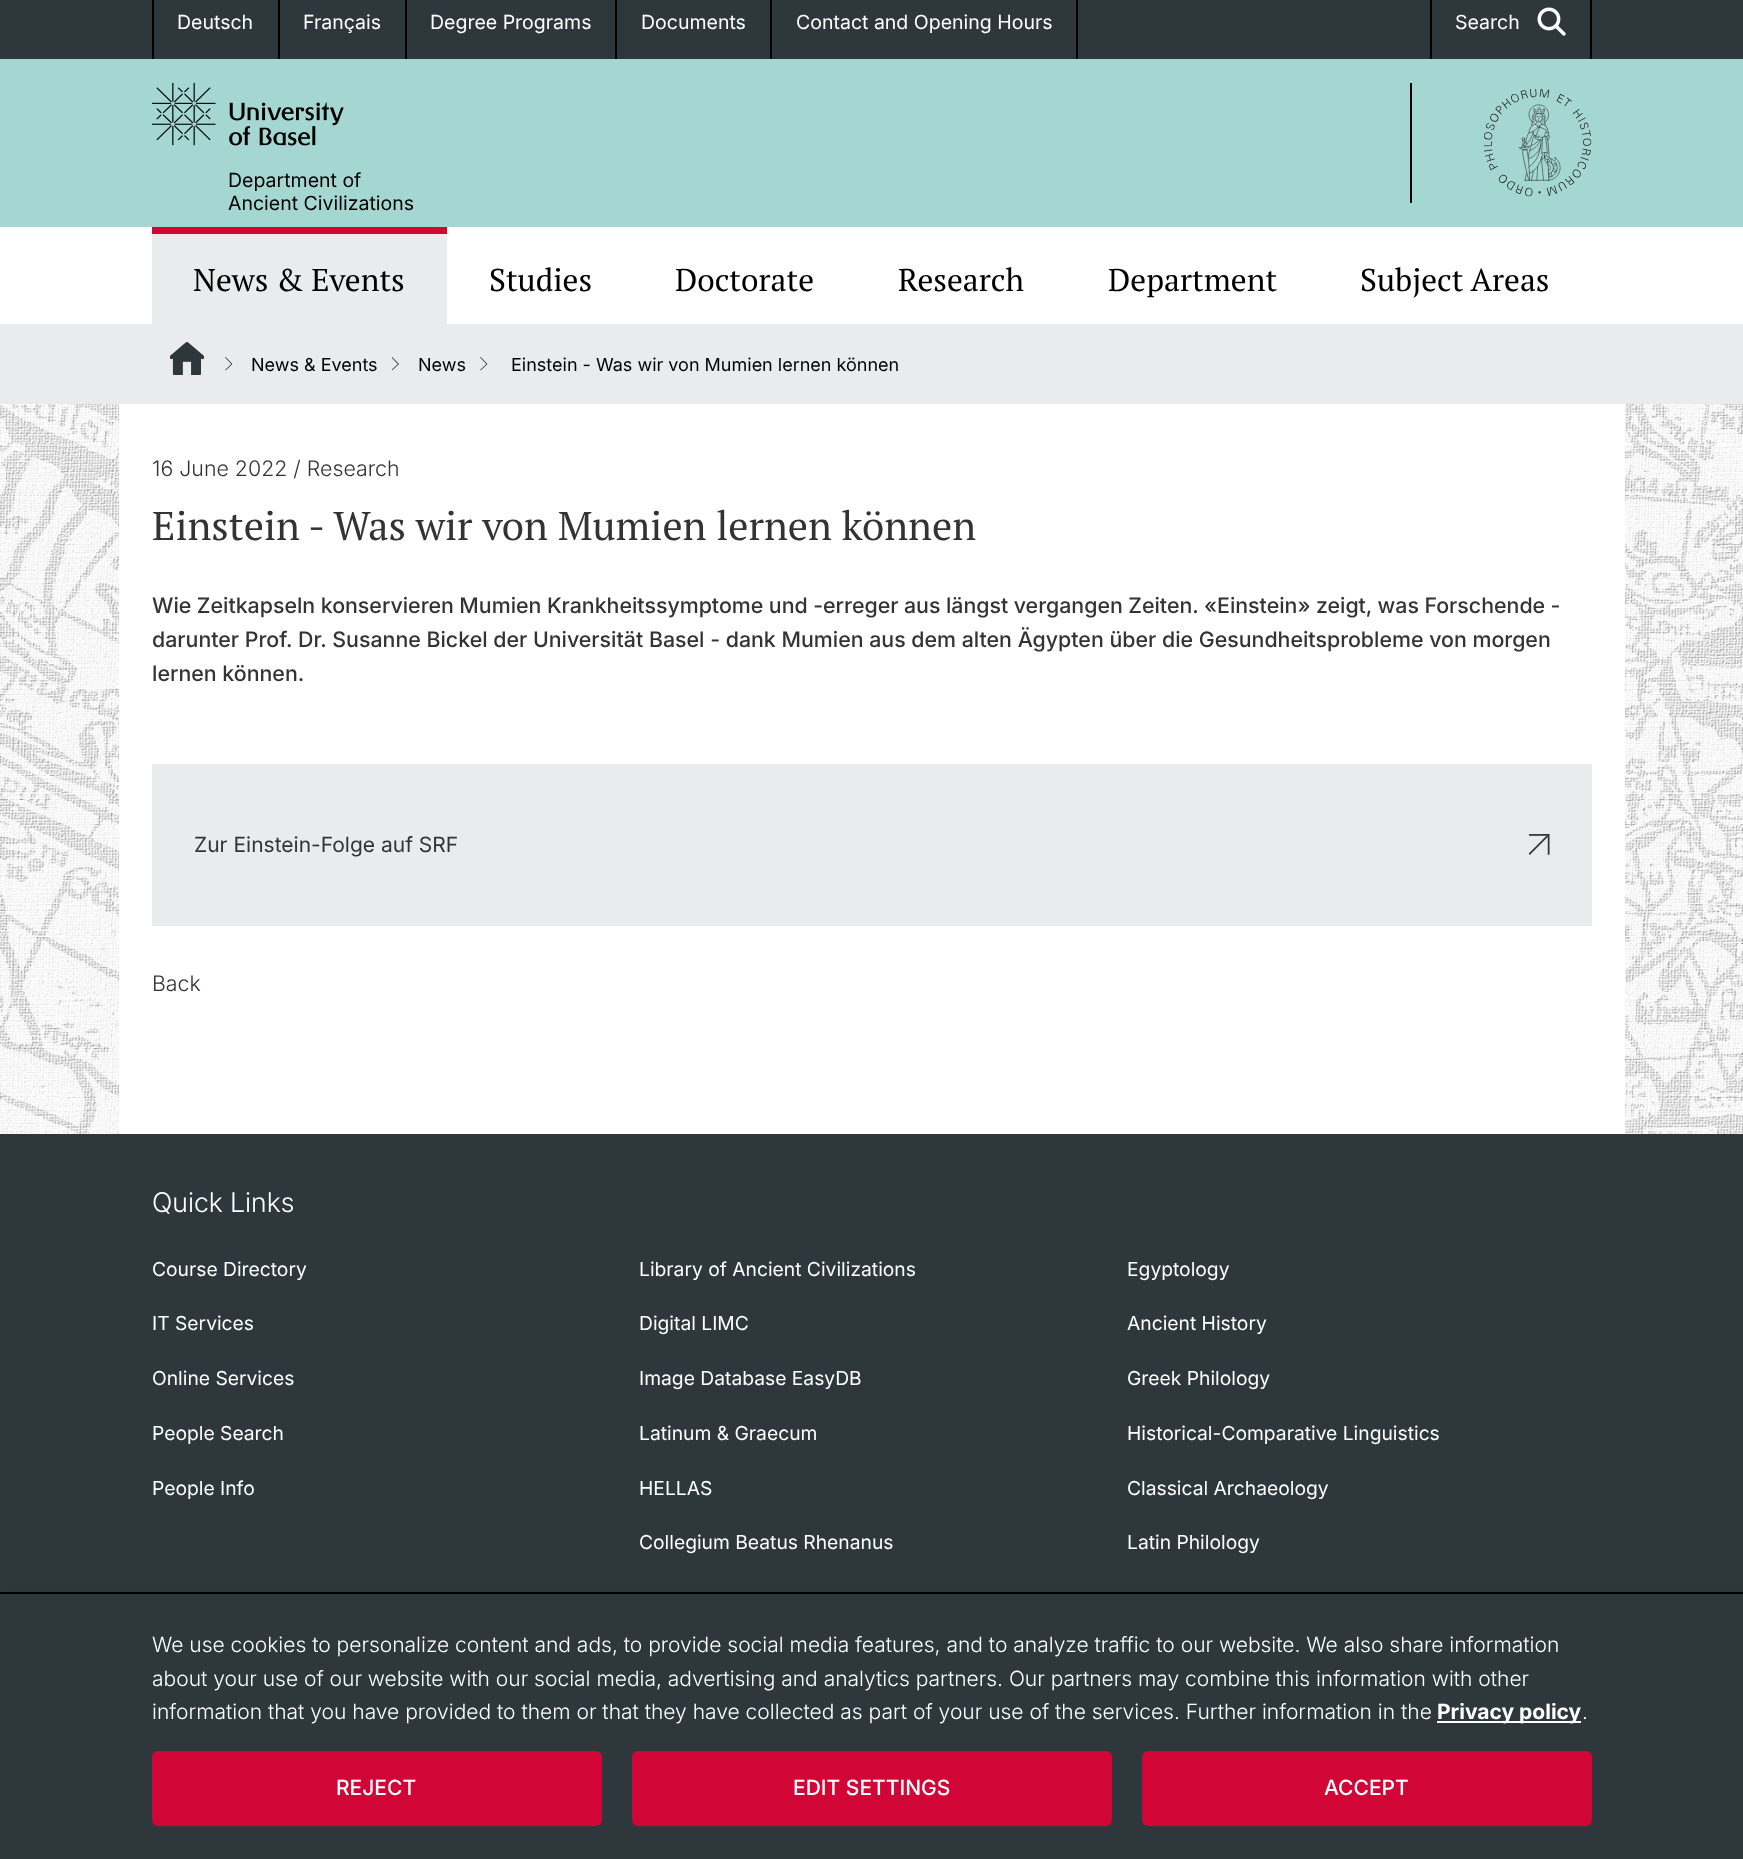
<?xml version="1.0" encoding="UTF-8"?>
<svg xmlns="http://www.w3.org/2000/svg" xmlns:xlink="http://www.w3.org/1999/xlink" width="1743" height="1859">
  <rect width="100%" height="100%" fill="#ffffff" />
  <image x="0" y="404" width="1743" height="730" xlink:href="image1.png" />
  <rect width="1743" height="59" fill="#2d373c" />
  <rect x="278" width="2" height="59" fill="#000000" />
  <rect x="152" width="2" height="59" fill="#000000" />
  <rect x="405" width="2" height="59" fill="#000000" />
  <rect x="615" width="2" height="59" fill="#000000" />
  <rect x="770" width="2" height="59" fill="#000000" />
  <rect x="1076" width="2" height="59" fill="#000000" />
  <rect x="1590" width="2" height="59" fill="#000000" />
  <rect x="1430" width="2" height="59" fill="#000000" />
  <image x="1537" y="7" width="29" height="29" xlink:href="image2.png" />
  <rect y="59" width="1743" height="168" fill="#a5d7d2" />
  <image x="152" y="83" width="192" height="63" xlink:href="image3.png" />
  <rect x="1410" y="83" width="2" height="120" fill="#000000" />
  <image x="1484" y="89" width="108" height="108" xlink:href="image4.png" />
  <rect x="152" y="234" width="295" height="90" fill="#eaebec" />
  <rect x="152" y="227" width="295" height="7" fill="#d20537" />
  <rect y="324" width="1743" height="80" fill="#eaebec" />
  <image x="170" y="342" width="34" height="33" xlink:href="image5.png" />
  <image x="225" y="357" width="8" height="14" xlink:href="image6.png" />
  <image x="392" y="357" width="7" height="14" xlink:href="image7.png" />
  <image x="480" y="357" width="8" height="14" xlink:href="image6.png" />
  <rect x="119" y="404" width="1506" height="730" fill="#ffffff" />
  <rect x="152" y="764" width="1440" height="162" fill="#eaebec" />
  <image x="1529" y="834" width="21" height="21" xlink:href="image8.png" />
  <rect y="1134" width="1743" height="458" fill="#2d373c" />
  <rect x="8" y="1599" width="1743" height="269" fill="#000000" fill-opacity="0.19" filter="blur(7.5px)" />
  <rect y="1594" width="1743" height="265" fill="#2d373c" />
  <rect y="1592" width="1743" height="2" fill="#000000" />
  <rect x="1437" y="1721" width="144" height="2" fill="#ffffff" />
  <rect x="152" y="1751" width="450" height="75" rx="6" fill="#d20537" />
  <rect x="1142" y="1751" width="450" height="75" rx="6" fill="#d20537" />
  <rect x="632" y="1751" width="480" height="75" rx="6" fill="#d20537" />
  <text x="177" y="29" style="font-family: Inter; font-size: 19.5px; fill: #ffffff">Deutsch</text>
  <text x="303" y="29" style="font-family: Inter; font-size: 19.5px; fill: #ffffff">Français</text>
  <text x="430" y="29" style="font-family: Inter; font-size: 19.5px; fill: #ffffff">Degree Programs</text>
  <text x="641" y="29" style="font-family: Inter; font-size: 19.5px; fill: #ffffff">Documents</text>
  <text x="796" y="29" style="font-family: Inter; font-size: 19.5px; fill: #ffffff">Contact and Opening Hours</text>
  <text x="1455" y="29" style="font-family: Inter; font-size: 19.5px; fill: #ffffff">Search</text>
  <text x="228" y="187" style="font-family: Inter; font-size: 19.5px; fill: #000000">Department of</text>
  <text x="228" y="210" style="font-family: Inter; font-size: 19.5px; fill: #000000">Ancient Civilizations</text>
  <text x="193" y="291" style="font-family: PT Serif; font-size: 31.5px; fill: #000000">News &amp; Events</text>
  <text x="489" y="291" style="font-family: PT Serif; font-size: 31.5px; fill: #000000">Studies</text>
  <text x="675" y="291" style="font-family: PT Serif; font-size: 31.5px; fill: #000000">Doctorate</text>
  <text x="898" y="291" style="font-family: PT Serif; font-size: 31.5px; fill: #000000">Research</text>
  <text x="1108" y="291" style="font-family: PT Serif; font-size: 31.5px; fill: #000000">Department</text>
  <text x="1360" y="291" style="font-family: PT Serif; font-size: 31.5px; fill: #000000">Subject Areas</text>
  <text x="251" y="371" style="font-family: Inter; font-size: 18px; fill: #000000">News &amp; Events</text>
  <text x="418" y="371" style="font-family: Inter; font-size: 18px; fill: #000000">News</text>
  <text x="511" y="371" style="font-family: Inter; font-size: 18px; fill: #000000">Einstein - Was wir von Mumien lernen können</text>
  <text x="152" y="476" style="font-family: Inter; font-size: 21.35px; font-weight: 300; fill: #333333">16 June 2022 / Research</text>
  <text x="152" y="540" style="font-family: PT Serif; font-size: 40.2px; fill: #333333">Einstein - Was wir von Mumien lernen können</text>
  <text x="152" y="613" word-spacing="-0.2" style="font-family: Inter; font-size: 21.35px; font-weight: 500; fill: #333333">Wie Zeitkapseln konservieren Mumien Krankheitssymptome und -erreger aus längst vergangen Zeiten. «Einstein» zeigt, was Forschende -</text>
  <text x="152" y="647" style="font-family: Inter; font-size: 21.35px; font-weight: 500; fill: #333333">darunter Prof. Dr. Susanne Bickel der Universität Basel - dank Mumien aus dem alten Ägypten über die Gesundheitsprobleme von morgen</text>
  <text x="152" y="681" style="font-family: Inter; font-size: 21.35px; font-weight: 500; fill: #333333">lernen können.</text>
  <text x="194" y="852" style="font-family: Inter; font-size: 21px; fill: #333333">Zur Einstein-Folge auf SRF</text>
  <text x="152" y="991" style="font-family: Inter; font-size: 21.35px; font-weight: 300; fill: #333333">Back</text>
  <text x="152" y="1212" style="font-family: 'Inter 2'; font-size: 27px; font-weight: 300; fill: #ffffff">Quick Links</text>
  <text x="152" y="1276" style="font-family: Inter; font-size: 19.25px; fill: #ffffff">Course Directory</text>
  <text x="152" y="1330" style="font-family: Inter; font-size: 19.25px; fill: #ffffff">IT Services</text>
  <text x="152" y="1385" style="font-family: Inter; font-size: 19.25px; fill: #ffffff">Online Services</text>
  <text x="152" y="1440" style="font-family: Inter; font-size: 19.25px; fill: #ffffff">People Search</text>
  <text x="152" y="1495" style="font-family: Inter; font-size: 19.25px; fill: #ffffff">People Info</text>
  <text x="639" y="1276" style="font-family: Inter; font-size: 19.25px; fill: #ffffff">Library of Ancient Civilizations</text>
  <text x="639" y="1330" style="font-family: Inter; font-size: 19.25px; fill: #ffffff">Digital LIMC</text>
  <text x="639" y="1385" style="font-family: Inter; font-size: 19.25px; fill: #ffffff">Image Database EasyDB</text>
  <text x="639" y="1440" style="font-family: Inter; font-size: 19.25px; fill: #ffffff">Latinum &amp; Graecum</text>
  <text x="639" y="1495" style="font-family: Inter; font-size: 19.25px; fill: #ffffff">HELLAS</text>
  <text x="639" y="1549" style="font-family: Inter; font-size: 19.25px; fill: #ffffff">Collegium Beatus Rhenanus</text>
  <text x="1127" y="1276" style="font-family: Inter; font-size: 19.25px; fill: #ffffff">Egyptology</text>
  <text x="1127" y="1330" style="font-family: Inter; font-size: 19.25px; fill: #ffffff">Ancient History</text>
  <text x="1127" y="1385" style="font-family: Inter; font-size: 19.25px; fill: #ffffff">Greek Philology</text>
  <text x="1127" y="1440" style="font-family: Inter; font-size: 19.25px; fill: #ffffff">Historical-Comparative Linguistics</text>
  <text x="1127" y="1495" style="font-family: Inter; font-size: 19.25px; fill: #ffffff">Classical Archaeology</text>
  <text x="1127" y="1549" style="font-family: Inter; font-size: 19.25px; fill: #ffffff">Latin Philology</text>
  <text x="152" y="1652" style="font-family: Inter; font-size: 21px; font-weight: 300; fill: #ffffff">We use cookies to personalize content and ads, to provide social media features, and to analyze traffic to our website. We also share information</text>
  <text x="152" y="1686" style="font-family: Inter; font-size: 21px; font-weight: 300; fill: #ffffff">about your use of our website with our social media, advertising and analytics partners. Our partners may combine this information with other</text>
  <text x="152" y="1719" style="font-family: Inter; font-size: 21px; font-weight: 300; fill: #ffffff">information that you have provided to them or that they have collected as part of your use of the services. Further information in the</text>
  <text x="1437" y="1719" style="font-family: Inter; font-size: 21px; font-weight: bold; fill: #ffffff">Privacy policy</text>
  <text x="1582" y="1719" style="font-family: Inter; font-size: 21px; font-weight: 300; fill: #ffffff">.</text>
  <text x="336" y="1795" style="font-family: Inter; font-size: 21px; font-weight: 500; fill: #ffffff">REJECT</text>
  <text x="1324" y="1795" style="font-family: Inter; font-size: 21px; font-weight: 500; fill: #ffffff">ACCEPT</text>
  <text x="793" y="1795" style="font-family: Inter; font-size: 21px; font-weight: 500; fill: #ffffff">EDIT SETTINGS</text>
</svg>
